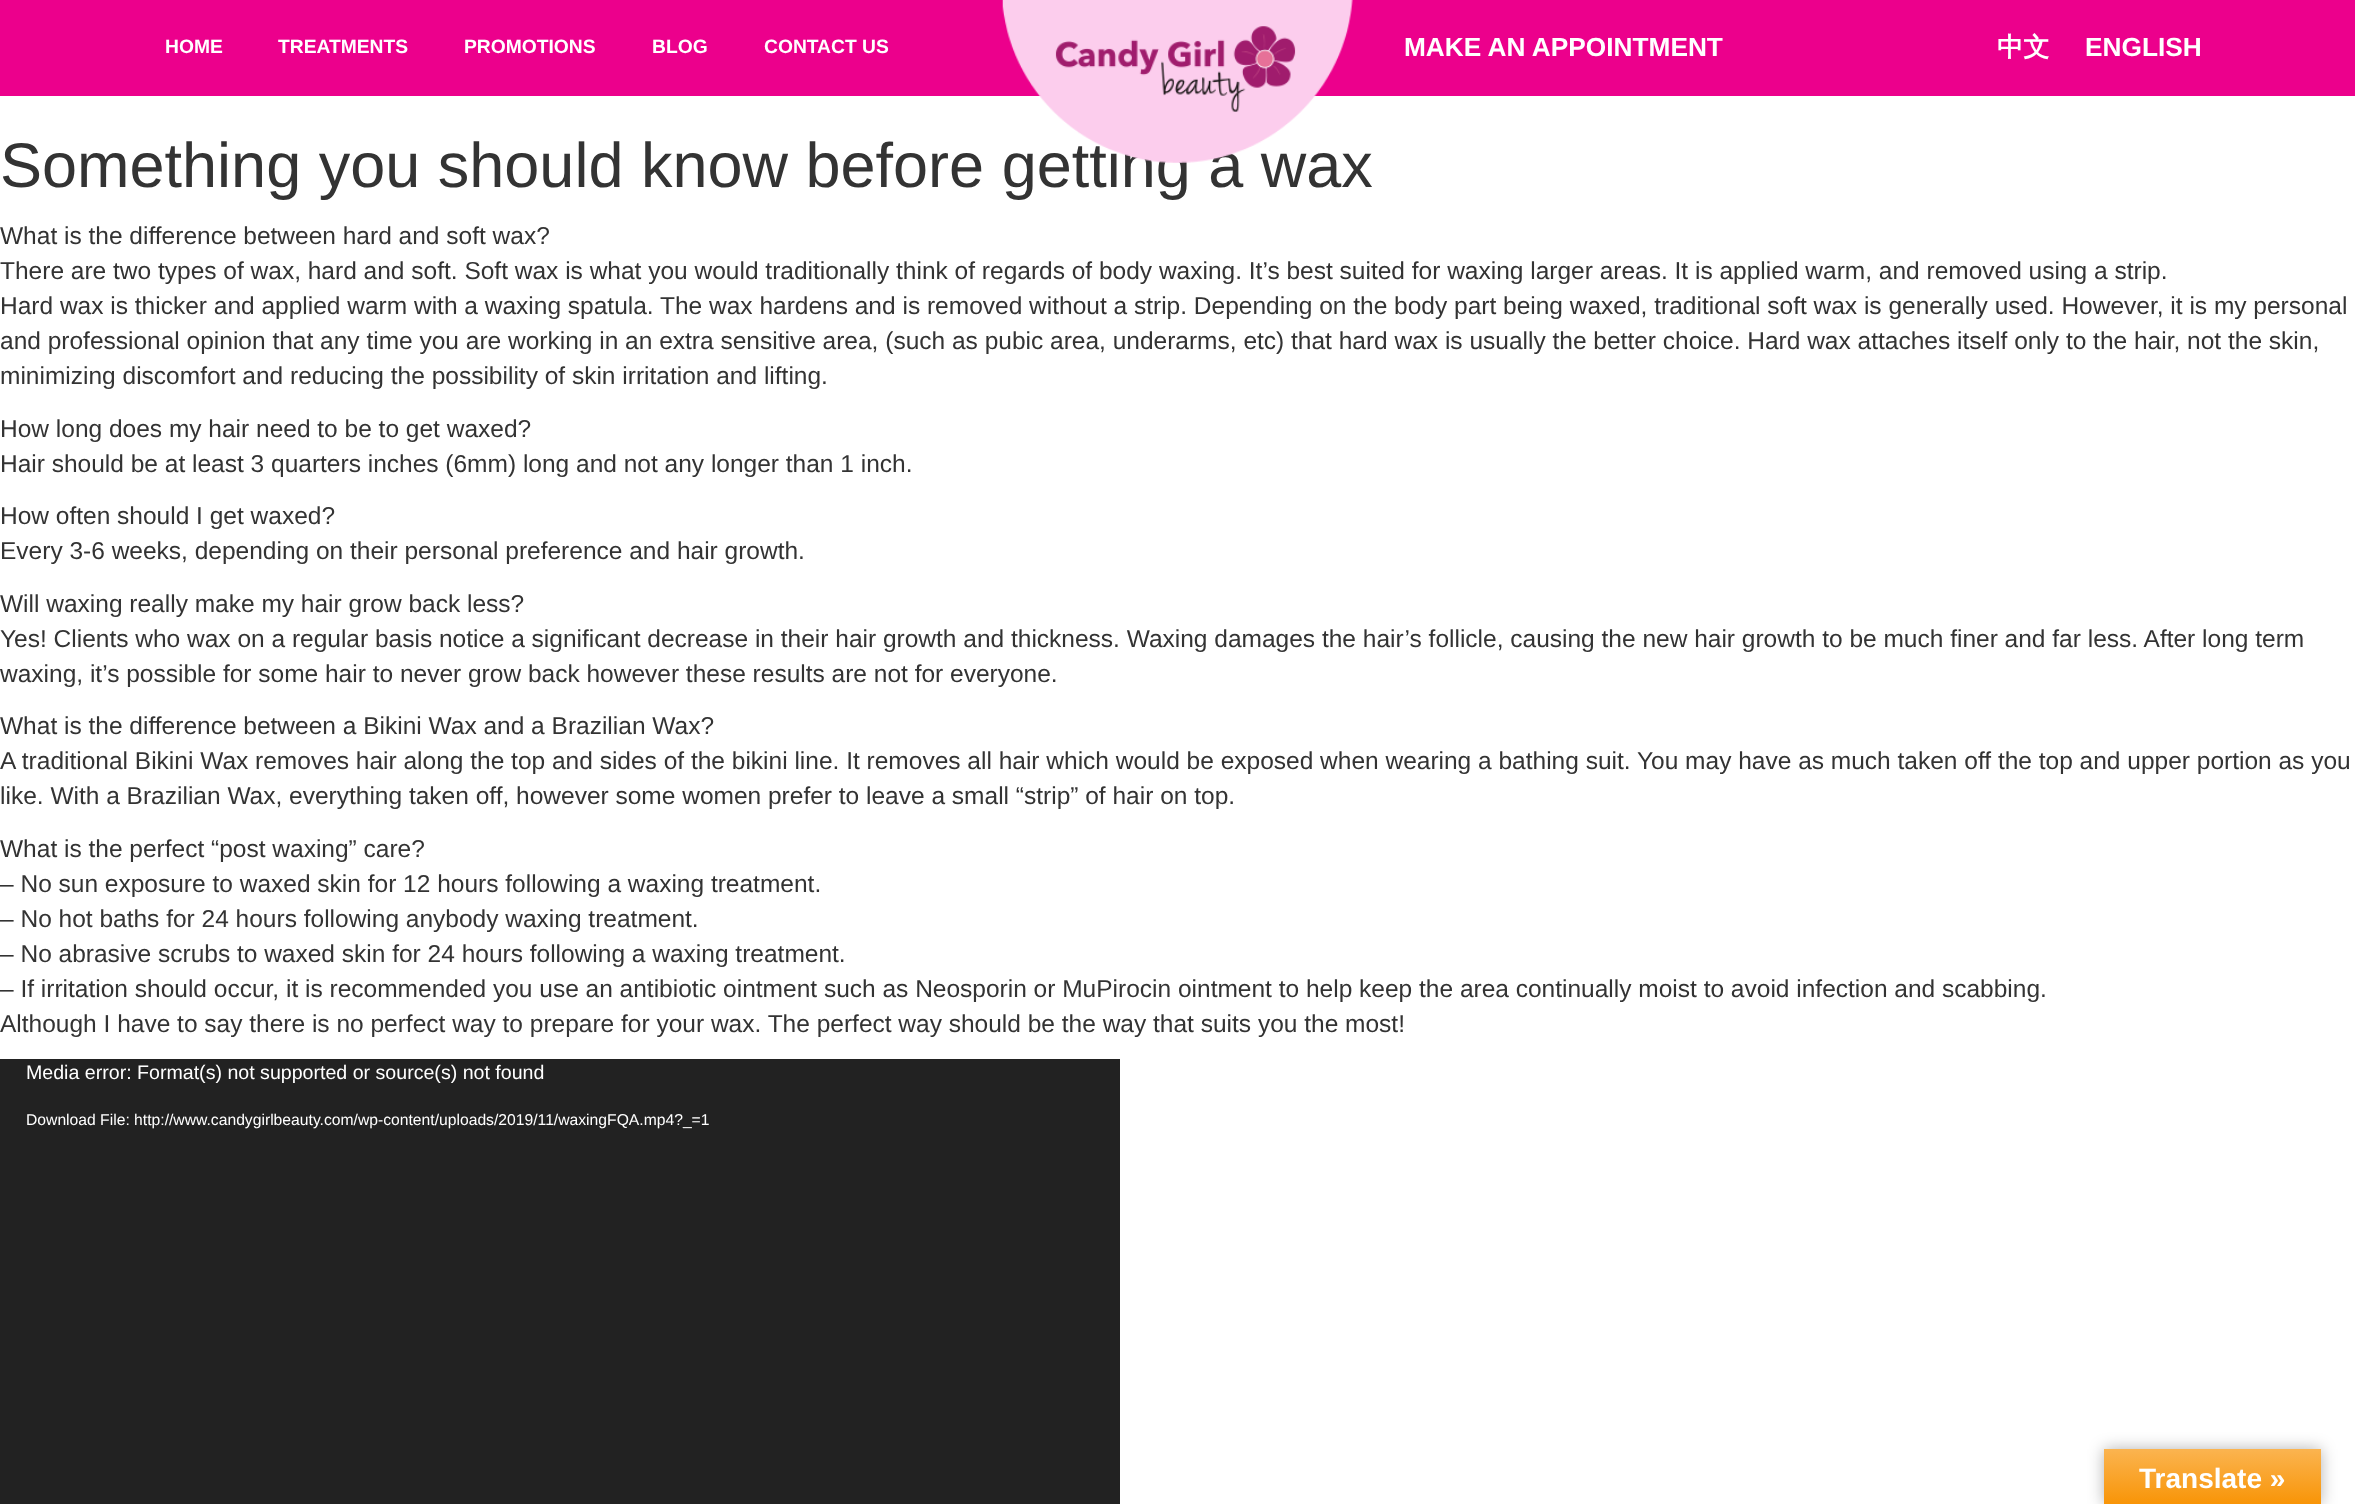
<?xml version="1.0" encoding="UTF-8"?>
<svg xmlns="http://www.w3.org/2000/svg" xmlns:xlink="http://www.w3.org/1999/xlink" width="2355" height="1504">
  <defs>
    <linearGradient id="g1" gradientUnits="userSpaceOnUse" x1="2212" y1="1449" x2="2212" y2="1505"><stop offset="0" stop-color="#fbb450" /><stop offset="1" stop-color="#f89406" /></linearGradient>
  </defs>
  <rect width="100%" height="100%" fill="#ffffff" />
  <rect width="2355" height="96" fill="#ec008c" />
  <rect y="1059" width="1120" height="445" fill="#222222" />
  <rect x="2104" y="1449" width="217" height="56" fill="#000000" fill-opacity="0.3" filter="blur(8px)" />
  <rect x="2104" y="1449" width="217" height="55" fill="url(#g1)" />
  <text x="165" y="53" style="font-family: Liberation Sans; font-size: 19.25px; font-weight: bold; fill: #ffffff">HOME</text>
  <text x="278" y="53" style="font-family: Liberation Sans; font-size: 19.25px; font-weight: bold; fill: #ffffff">TREATMENTS</text>
  <text x="464" y="53" style="font-family: Liberation Sans; font-size: 19.25px; font-weight: bold; fill: #ffffff">PROMOTIONS</text>
  <text x="652" y="53" style="font-family: Liberation Sans; font-size: 19.25px; font-weight: bold; fill: #ffffff">BLOG</text>
  <text x="764" y="53" style="font-family: Liberation Sans; font-size: 19.25px; font-weight: bold; fill: #ffffff">CONTACT US</text>
  <text x="1404" y="56" style="font-family: Liberation Sans; font-size: 26.25px; font-weight: bold; fill: #ffffff">MAKE AN APPOINTMENT</text>
  <text x="1997" y="56" style="font-family: WenQuanYi Zen Hei; font-size: 26.25px; font-weight: bold; fill: #ffffff">中文</text>
  <text x="2085" y="56" style="font-family: Liberation Sans; font-size: 26.25px; font-weight: bold; fill: #ffffff">ENGLISH</text>
  <text x="0" y="187" style="font-family: Liberation Sans; font-size: 63px; fill: #333333">Something you should know before getting a wax</text>
  <image x="1002" y="0" width="351" height="163" xlink:href="image1.png" />
  <text x="0" y="244" style="font-family: Liberation Sans; font-size: 24.5px; fill: #333333">What is the difference between hard and soft wax?</text>
  <text x="0" y="279" style="font-family: Liberation Sans; font-size: 24.5px; fill: #333333">There are two types of wax, hard and soft. Soft wax is what you would traditionally think of regards of body waxing. It’s best suited for waxing larger areas. It is applied warm, and removed using a strip.</text>
  <text x="0" y="314" style="font-family: Liberation Sans; font-size: 24.5px; fill: #333333">Hard wax is thicker and applied warm with a waxing spatula. The wax hardens and is removed without a strip. Depending on the body part being waxed, traditional soft wax is generally used. However, it is my personal</text>
  <text x="0" y="349" style="font-family: Liberation Sans; font-size: 24.5px; fill: #333333">and professional opinion that any time you are working in an extra sensitive area, (such as pubic area, underarms, etc) that hard wax is usually the better choice. Hard wax attaches itself only to the hair, not the skin,</text>
  <text x="0" y="384" style="font-family: Liberation Sans; font-size: 24.5px; fill: #333333">minimizing discomfort and reducing the possibility of skin irritation and lifting.</text>
  <text x="0" y="437" style="font-family: Liberation Sans; font-size: 24.5px; fill: #333333">How long does my hair need to be to get waxed?</text>
  <text x="0" y="472" style="font-family: Liberation Sans; font-size: 24.5px; fill: #333333">Hair should be at least 3 quarters inches (6mm) long and not any longer than 1 inch.</text>
  <text x="0" y="524" style="font-family: Liberation Sans; font-size: 24.5px; fill: #333333">How often should I get waxed?</text>
  <text x="0" y="559" style="font-family: Liberation Sans; font-size: 24.5px; fill: #333333">Every 3-6 weeks, depending on their personal preference and hair growth.</text>
  <text x="0" y="612" style="font-family: Liberation Sans; font-size: 24.5px; fill: #333333">Will waxing really make my hair grow back less?</text>
  <text x="0" y="647" style="font-family: Liberation Sans; font-size: 24.5px; fill: #333333">Yes! Clients who wax on a regular basis notice a significant decrease in their hair growth and thickness. Waxing damages the hair’s follicle, causing the new hair growth to be much finer and far less. After long term</text>
  <text x="0" y="682" style="font-family: Liberation Sans; font-size: 24.5px; fill: #333333">waxing, it’s possible for some hair to never grow back however these results are not for everyone.</text>
  <text x="0" y="734" style="font-family: Liberation Sans; font-size: 24.5px; fill: #333333">What is the difference between a Bikini Wax and a Brazilian Wax?</text>
  <text x="0" y="769" style="font-family: Liberation Sans; font-size: 24.5px; fill: #333333">A traditional Bikini Wax removes hair along the top and sides of the bikini line. It removes all hair which would be exposed when wearing a bathing suit. You may have as much taken off the top and upper portion as you</text>
  <text x="0" y="804" style="font-family: Liberation Sans; font-size: 24.5px; fill: #333333">like. With a Brazilian Wax, everything taken off, however some women prefer to leave a small “strip” of hair on top.</text>
  <text x="0" y="857" style="font-family: Liberation Sans; font-size: 24.5px; fill: #333333">What is the perfect “post waxing” care?</text>
  <text x="0" y="892" style="font-family: Liberation Sans; font-size: 24.5px; fill: #333333">– No sun exposure to waxed skin for 12 hours following a waxing treatment.</text>
  <text x="0" y="927" style="font-family: Liberation Sans; font-size: 24.5px; fill: #333333">– No hot baths for 24 hours following anybody waxing treatment.</text>
  <text x="0" y="962" style="font-family: Liberation Sans; font-size: 24.5px; fill: #333333">– No abrasive scrubs to waxed skin for 24 hours following a waxing treatment.</text>
  <text x="0" y="997" style="font-family: Liberation Sans; font-size: 24.5px; fill: #333333">– If irritation should occur, it is recommended you use an antibiotic ointment such as Neosporin or MuPirocin ointment to help keep the area continually moist to avoid infection and scabbing.</text>
  <text x="0" y="1032" style="font-family: Liberation Sans; font-size: 24.5px; fill: #333333">Although I have to say there is no perfect way to prepare for your wax. The perfect way should be the way that suits you the most!</text>
  <text x="26" y="1079" style="font-family: Liberation Sans; font-size: 19.6px; fill: #ffffff">Media error: Format(s) not supported or source(s) not found</text>
  <text x="26" y="1125" style="font-family: Liberation Sans; font-size: 15.7px; fill: #ffffff">Download File: http://www.candygirlbeauty.com/wp-content/uploads/2019/11/waxingFQA.mp4?_=1</text>
  <text x="2139" y="1488" style="font-family: Liberation Sans; font-size: 28px; font-weight: bold; fill: #ffffff">Translate »</text>
</svg>
